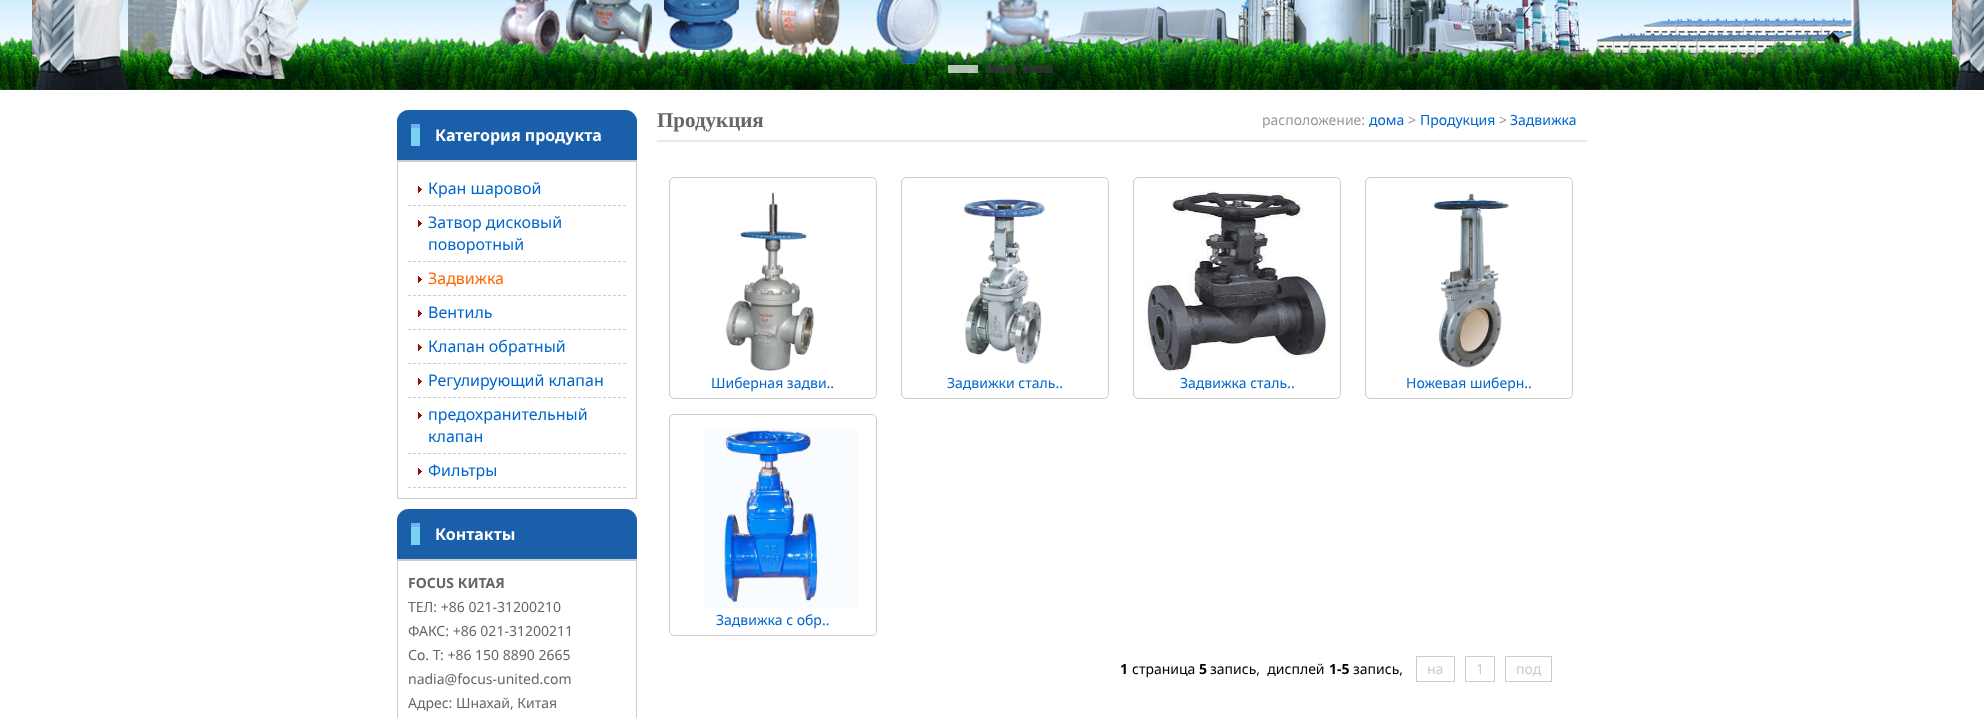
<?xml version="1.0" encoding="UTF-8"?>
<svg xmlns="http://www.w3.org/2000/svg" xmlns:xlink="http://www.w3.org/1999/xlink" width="1984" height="718">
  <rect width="100%" height="100%" fill="#ffffff" />
  <image x="0" y="0" width="1984" height="90" xlink:href="image1.png" />
  <image x="499" y="0" width="552" height="64" xlink:href="image2.png" />
  <rect x="948" y="65" width="30" height="8" fill="#ffffff" fill-opacity="0.7" />
  <rect x="985" y="65" width="30" height="8" fill="#363636" fill-opacity="0.7" />
  <rect x="1023" y="65" width="30" height="8" fill="#363636" fill-opacity="0.7" />
  <image x="397" y="110" width="240" height="50" xlink:href="image3.png" />
  <rect x="397" y="160" width="240" height="1" fill="#cccccc" />
  <rect x="397.5" y="161.5" width="239" height="337" fill="none" stroke="#cccccc" />
  <image x="418" y="186" width="4" height="7" xlink:href="image4.png" />
  <path d="M 408 205.5 h 218" fill="none" stroke="#cccccc" stroke-dasharray="3 2" />
  <image x="418" y="220" width="4" height="7" xlink:href="image4.png" />
  <path d="M 408 261.5 h 218" fill="none" stroke="#cccccc" stroke-dasharray="3 2" />
  <image x="418" y="276" width="4" height="7" xlink:href="image4.png" />
  <path d="M 408 295.5 h 218" fill="none" stroke="#cccccc" stroke-dasharray="3 2" />
  <image x="418" y="310" width="4" height="7" xlink:href="image4.png" />
  <path d="M 408 329.5 h 218" fill="none" stroke="#cccccc" stroke-dasharray="3 2" />
  <image x="418" y="344" width="4" height="7" xlink:href="image4.png" />
  <path d="M 408 363.5 h 218" fill="none" stroke="#cccccc" stroke-dasharray="3 2" />
  <image x="418" y="378" width="4" height="7" xlink:href="image4.png" />
  <path d="M 408 397.5 h 218" fill="none" stroke="#cccccc" stroke-dasharray="3 2" />
  <image x="418" y="412" width="4" height="7" xlink:href="image4.png" />
  <path d="M 408 453.5 h 218" fill="none" stroke="#cccccc" stroke-dasharray="3 2" />
  <image x="418" y="468" width="4" height="7" xlink:href="image4.png" />
  <path d="M 408 487.5 h 218" fill="none" stroke="#cccccc" stroke-dasharray="3 2" />
  <image x="397" y="509" width="240" height="50" xlink:href="image3.png" />
  <rect x="397" y="559" width="240" height="1" fill="#cccccc" />
  <rect x="397.5" y="560.5" width="239" height="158" fill="none" stroke="#cccccc" />
  <rect x="657" y="140" width="930" height="2" fill="#e8e8e8" />
  <rect x="669.5" y="177.5" width="207" height="221" rx="4.5" fill="none" stroke="#cccccc" />
  <image x="725" y="192" width="89" height="179" xlink:href="image5.png" />
  <rect x="901.5" y="177.5" width="207" height="221" rx="4.5" fill="none" stroke="#cccccc" />
  <image x="963" y="199" width="82" height="165" xlink:href="image6.png" />
  <rect x="1133.5" y="177.5" width="207" height="221" rx="4.5" fill="none" stroke="#cccccc" />
  <image x="1147" y="191" width="180" height="180" xlink:href="image7.png" />
  <rect x="1365.5" y="177.5" width="207" height="221" rx="4.5" fill="none" stroke="#cccccc" />
  <image x="1433" y="193" width="76" height="175" xlink:href="image8.png" />
  <rect x="669.5" y="414.5" width="207" height="221" rx="4.5" fill="none" stroke="#cccccc" />
  <image x="704" y="428" width="153" height="180" xlink:href="image9.png" />
  <rect x="1416.5" y="656.5" width="38" height="25" fill="none" stroke="#cccccc" />
  <rect x="1465.5" y="656.5" width="29" height="25" fill="none" stroke="#cccccc" />
  <rect x="1505.5" y="656.5" width="46" height="25" fill="none" stroke="#cccccc" />
  <text x="435" y="141" style="font-family: Noto Sans; font-size: 16px; font-weight: bold; fill: #ffffff">Категория продукта</text>
  <text x="428" y="194" style="font-family: Noto Sans; font-size: 16px; fill: #0066cc">Кран шаровой</text>
  <text x="428" y="228" style="font-family: Noto Sans; font-size: 16px; fill: #0066cc">Затвор дисковый</text>
  <text x="428" y="250" style="font-family: Noto Sans; font-size: 16px; fill: #0066cc">поворотный</text>
  <text x="428" y="284" style="font-family: Noto Sans; font-size: 16px; fill: #ff6600">Задвижка</text>
  <text x="428" y="318" style="font-family: Noto Sans; font-size: 16px; fill: #0066cc">Вентиль</text>
  <text x="428" y="352" style="font-family: Noto Sans; font-size: 16px; fill: #0066cc">Клапан обратный</text>
  <text x="428" y="386" style="font-family: Noto Sans; font-size: 16px; fill: #0066cc">Регулирующий клапан</text>
  <text x="428" y="420" style="font-family: Noto Sans; font-size: 16px; fill: #0066cc">предохранительный</text>
  <text x="428" y="442" style="font-family: Noto Sans; font-size: 16px; fill: #0066cc">клапан</text>
  <text x="428" y="476" style="font-family: Noto Sans; font-size: 16px; fill: #0066cc">Фильтры</text>
  <text x="435" y="540" style="font-family: Noto Sans; font-size: 16px; font-weight: bold; fill: #ffffff">Контакты</text>
  <text x="408" y="588" style="font-family: Noto Sans; font-size: 14px; font-weight: bold; fill: #666666">FOCUS КИТАЯ</text>
  <text x="408" y="612" style="font-family: Noto Sans; font-size: 14px; fill: #666666">ТЕЛ: +86 021-31200210</text>
  <text x="408" y="636" style="font-family: Noto Sans; font-size: 14px; fill: #666666">ФАКС: +86 021-31200211</text>
  <text x="408" y="660" style="font-family: Noto Sans; font-size: 14px; fill: #666666">Со. Т: +86 150 8890 2665</text>
  <text x="408" y="684" style="font-family: Noto Sans; font-size: 14px; fill: #666666">nadia@focus-united.com</text>
  <text x="408" y="708" style="font-family: Noto Sans; font-size: 14px; fill: #666666">Адрес: Шнахай, Китая</text>
  <text x="657" y="127" style="font-family: Liberation Serif; font-size: 21px; font-weight: bold; fill: #666666">Продукция</text>
  <text x="1262" y="125" style="font-family: Noto Sans; font-size: 14px; fill: #999999">расположение:</text>
  <text x="1369" y="125" style="font-family: Noto Sans; font-size: 14px; fill: #0066cc">дома</text>
  <text x="1408" y="125" style="font-family: Noto Sans; font-size: 14px; fill: #999999">&gt;</text>
  <text x="1420" y="125" style="font-family: Noto Sans; font-size: 14px; fill: #0066cc">Продукция</text>
  <text x="1499" y="125" style="font-family: Noto Sans; font-size: 14px; fill: #999999">&gt;</text>
  <text x="1510" y="125" style="font-family: Noto Sans; font-size: 14px; fill: #0066cc">Задвижка</text>
  <text x="711" y="388" style="font-family: Noto Sans; font-size: 14px; fill: #0066cc">Шиберная задви..</text>
  <text x="947" y="388" style="font-family: Noto Sans; font-size: 14px; fill: #0066cc">Задвижки сталь..</text>
  <text x="1180" y="388" style="font-family: Noto Sans; font-size: 14px; fill: #0066cc">Задвижка сталь..</text>
  <text x="1406" y="388" style="font-family: Noto Sans; font-size: 14px; fill: #0066cc">Ножевая шиберн..</text>
  <text x="716" y="625" style="font-family: Noto Sans; font-size: 14px; fill: #0066cc">Задвижка с обр..</text>
  <text x="1120" y="674" style="font-family: Noto Sans; font-size: 14px; font-weight: bold; fill: #000000">1</text>
  <text x="1132" y="674" style="font-family: Noto Sans; font-size: 14px; fill: #000000">страница</text>
  <text x="1199" y="674" style="font-family: Noto Sans; font-size: 14px; font-weight: bold; fill: #000000">5</text>
  <text x="1210" y="674" style="font-family: Noto Sans; font-size: 14px; fill: #000000" xml:space="preserve">запись,  дисплей</text>
  <text x="1329" y="674" style="font-family: Noto Sans; font-size: 14px; font-weight: bold; fill: #000000">1-5</text>
  <text x="1353" y="674" style="font-family: Noto Sans; font-size: 14px; fill: #000000">запись,</text>
  <text x="1427" y="674" style="font-family: Noto Sans; font-size: 14px; fill: #cccccc">на</text>
  <text x="1476" y="674" style="font-family: Noto Sans; font-size: 14px; fill: #cccccc">1</text>
  <text x="1516" y="674" style="font-family: Noto Sans; font-size: 14px; fill: #cccccc">под</text>
</svg>
